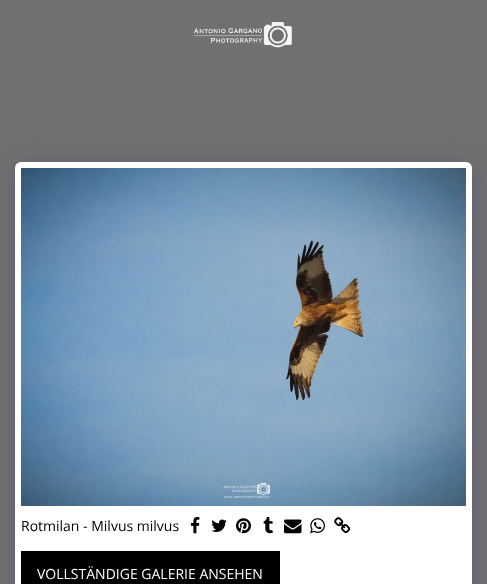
<?xml version="1.0" encoding="UTF-8"?>
<svg xmlns="http://www.w3.org/2000/svg" xmlns:xlink="http://www.w3.org/1999/xlink" width="487" height="584">
  <rect width="100%" height="100%" fill="#707070" />
  <image x="193" y="22" width="99" height="26" xlink:href="image1.png" />
  <rect x="15" y="165" width="457" height="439" rx="6" fill="#4d3f7a" fill-opacity="0.4" filter="blur(10px)" />
  <rect x="15" y="162" width="457" height="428" rx="6" fill="#ffffff" />
  <image x="21" y="168" width="445" height="338" xlink:href="image2.png" />
  <image x="190" y="517" width="10" height="17" xlink:href="image3.png" />
  <image x="211" y="519" width="16" height="13" xlink:href="image4.png" />
  <image x="236" y="518" width="15" height="16" xlink:href="image5.png" />
  <image x="263" y="517" width="10" height="17" xlink:href="image6.png" />
  <image x="284" y="519" width="18" height="15" xlink:href="image7.png" />
  <image x="310" y="518" width="15" height="16" xlink:href="image8.png" />
  <image x="334" y="517" width="16" height="17" xlink:href="image9.png" />
  <rect x="21" y="551" width="259" height="33" fill="#000000" />
  <text x="21" y="531" style="font-family: Open Sans; font-size: 14px; fill: #000000">Rotmilan - Milvus milvus</text>
  <text x="37" y="579" style="font-family: Open Sans; font-size: 14px; fill: #ffffff">VOLLSTÄNDIGE GALERIE ANSEHEN</text>
</svg>
